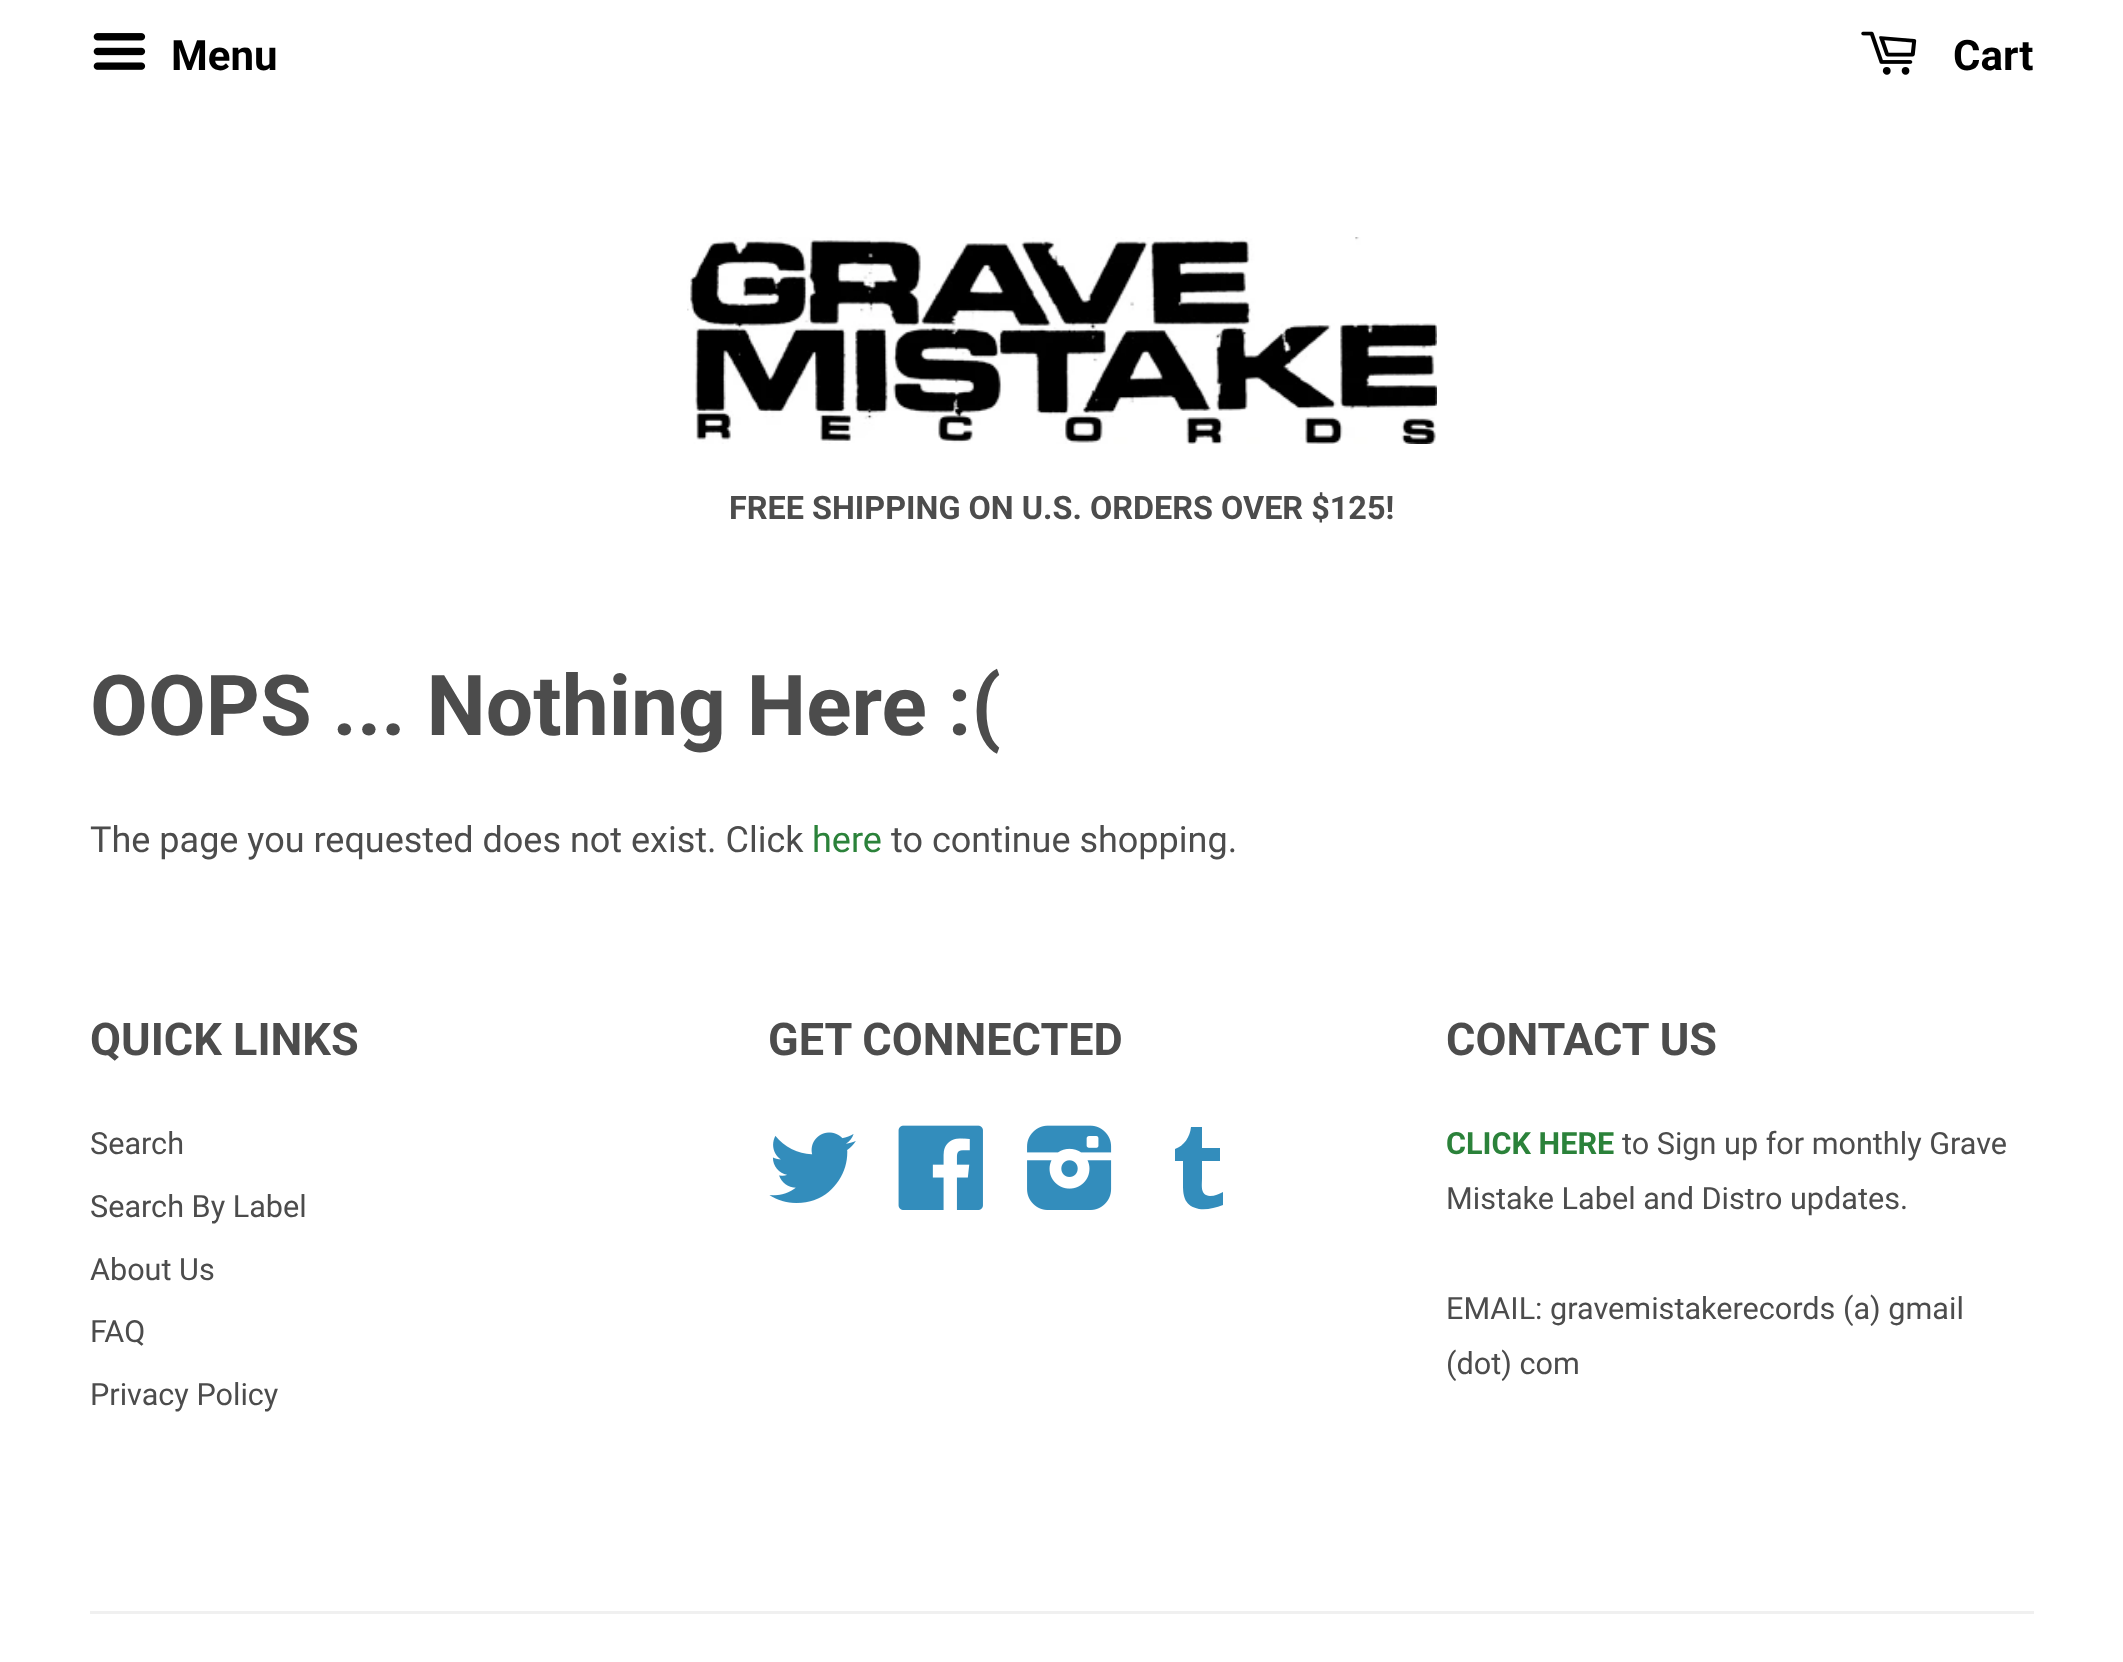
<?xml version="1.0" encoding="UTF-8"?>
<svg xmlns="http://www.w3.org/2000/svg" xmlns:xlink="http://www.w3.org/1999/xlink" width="2123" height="1662">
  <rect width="100%" height="100%" fill="#ffffff" />
  <image x="93" y="33" width="53" height="37" xlink:href="image1.png" />
  <image x="1861" y="31" width="56" height="44" xlink:href="image2.png" />
  <image x="687" y="237" width="750" height="207" xlink:href="image3.png" />
  <image x="769" y="1132" width="87" height="71" xlink:href="image4.png" />
  <image x="898" y="1125" width="85" height="85" xlink:href="image5.png" />
  <image x="1027" y="1125" width="85" height="85" xlink:href="image6.png" />
  <path d="M 1175 1161 h 8 v 24 c 0 12 2 21 16 24 c 8 1 16 -1 24 -4 v -13 c -4 2 -8 4 -13 4 c -10 -1 -8 -10 -8 -18 v -17 h 18 v -13 h -18 v -21 h -11 c -1 10 -7 19 -16 22 z" fill="#338dbc" />
  <rect x="90" y="1611" width="1944" height="3" fill="#f0f0f0" />
  <text x="171" y="70" style="font-family: Roboto; font-size: 42px; font-weight: bold; fill: #000000">Menu</text>
  <text x="1953" y="70" style="font-family: Roboto; font-size: 42px; font-weight: bold; fill: #000000">Cart</text>
  <text x="729" y="519" style="font-family: Roboto; font-size: 32.4px; font-weight: bold; fill: #4c4c4c">FREE SHIPPING ON U.S. ORDERS OVER $125!</text>
  <text x="90" y="735" style="font-family: Roboto; font-size: 84px; font-weight: bold; fill: #4c4c4c">OOPS ... Nothing Here :(</text>
  <text x="90" y="852" style="font-family: Roboto; font-size: 36px; fill: #4c4c4c">The page you requested does not exist. Click</text>
  <text x="812" y="852" style="font-family: Roboto; font-size: 36px; fill: #2b823a">here</text>
  <text x="891" y="852" style="font-family: Roboto; font-size: 36px; fill: #4c4c4c">to continue shopping.</text>
  <text x="90" y="1055" style="font-family: Roboto; font-size: 45px; font-weight: bold; fill: #4c4c4c">QUICK LINKS</text>
  <text x="90" y="1154" style="font-family: Roboto; font-size: 30.6px; fill: #4c4c4c">Search</text>
  <text x="90" y="1217" style="font-family: Roboto; font-size: 30.6px; fill: #4c4c4c">Search By Label</text>
  <text x="90" y="1280" style="font-family: Roboto; font-size: 30.6px; fill: #4c4c4c">About Us</text>
  <text x="90" y="1342" style="font-family: Roboto; font-size: 30.6px; fill: #4c4c4c">FAQ</text>
  <text x="90" y="1405" style="font-family: Roboto; font-size: 30.6px; fill: #4c4c4c">Privacy Policy</text>
  <text x="768" y="1055" style="font-family: Roboto; font-size: 45px; font-weight: bold; fill: #4c4c4c">GET CONNECTED</text>
  <text x="1446" y="1055" style="font-family: Roboto; font-size: 45px; font-weight: bold; fill: #4c4c4c">CONTACT US</text>
  <text x="1446" y="1154" style="font-family: Roboto; font-size: 30.6px; font-weight: bold; fill: #2b823a">CLICK HERE</text>
  <text x="1622" y="1154" style="font-family: Roboto; font-size: 30.6px; fill: #4c4c4c">to Sign up for monthly Grave</text>
  <text x="1446" y="1209" style="font-family: Roboto; font-size: 30.6px; fill: #4c4c4c">Mistake Label and Distro updates.</text>
  <text x="1446" y="1319" style="font-family: Roboto; font-size: 30.6px; fill: #4c4c4c">EMAIL: gravemistakerecords (a) gmail</text>
  <text x="1446" y="1374" style="font-family: Roboto; font-size: 30.6px; fill: #4c4c4c">(dot) com</text>
</svg>
